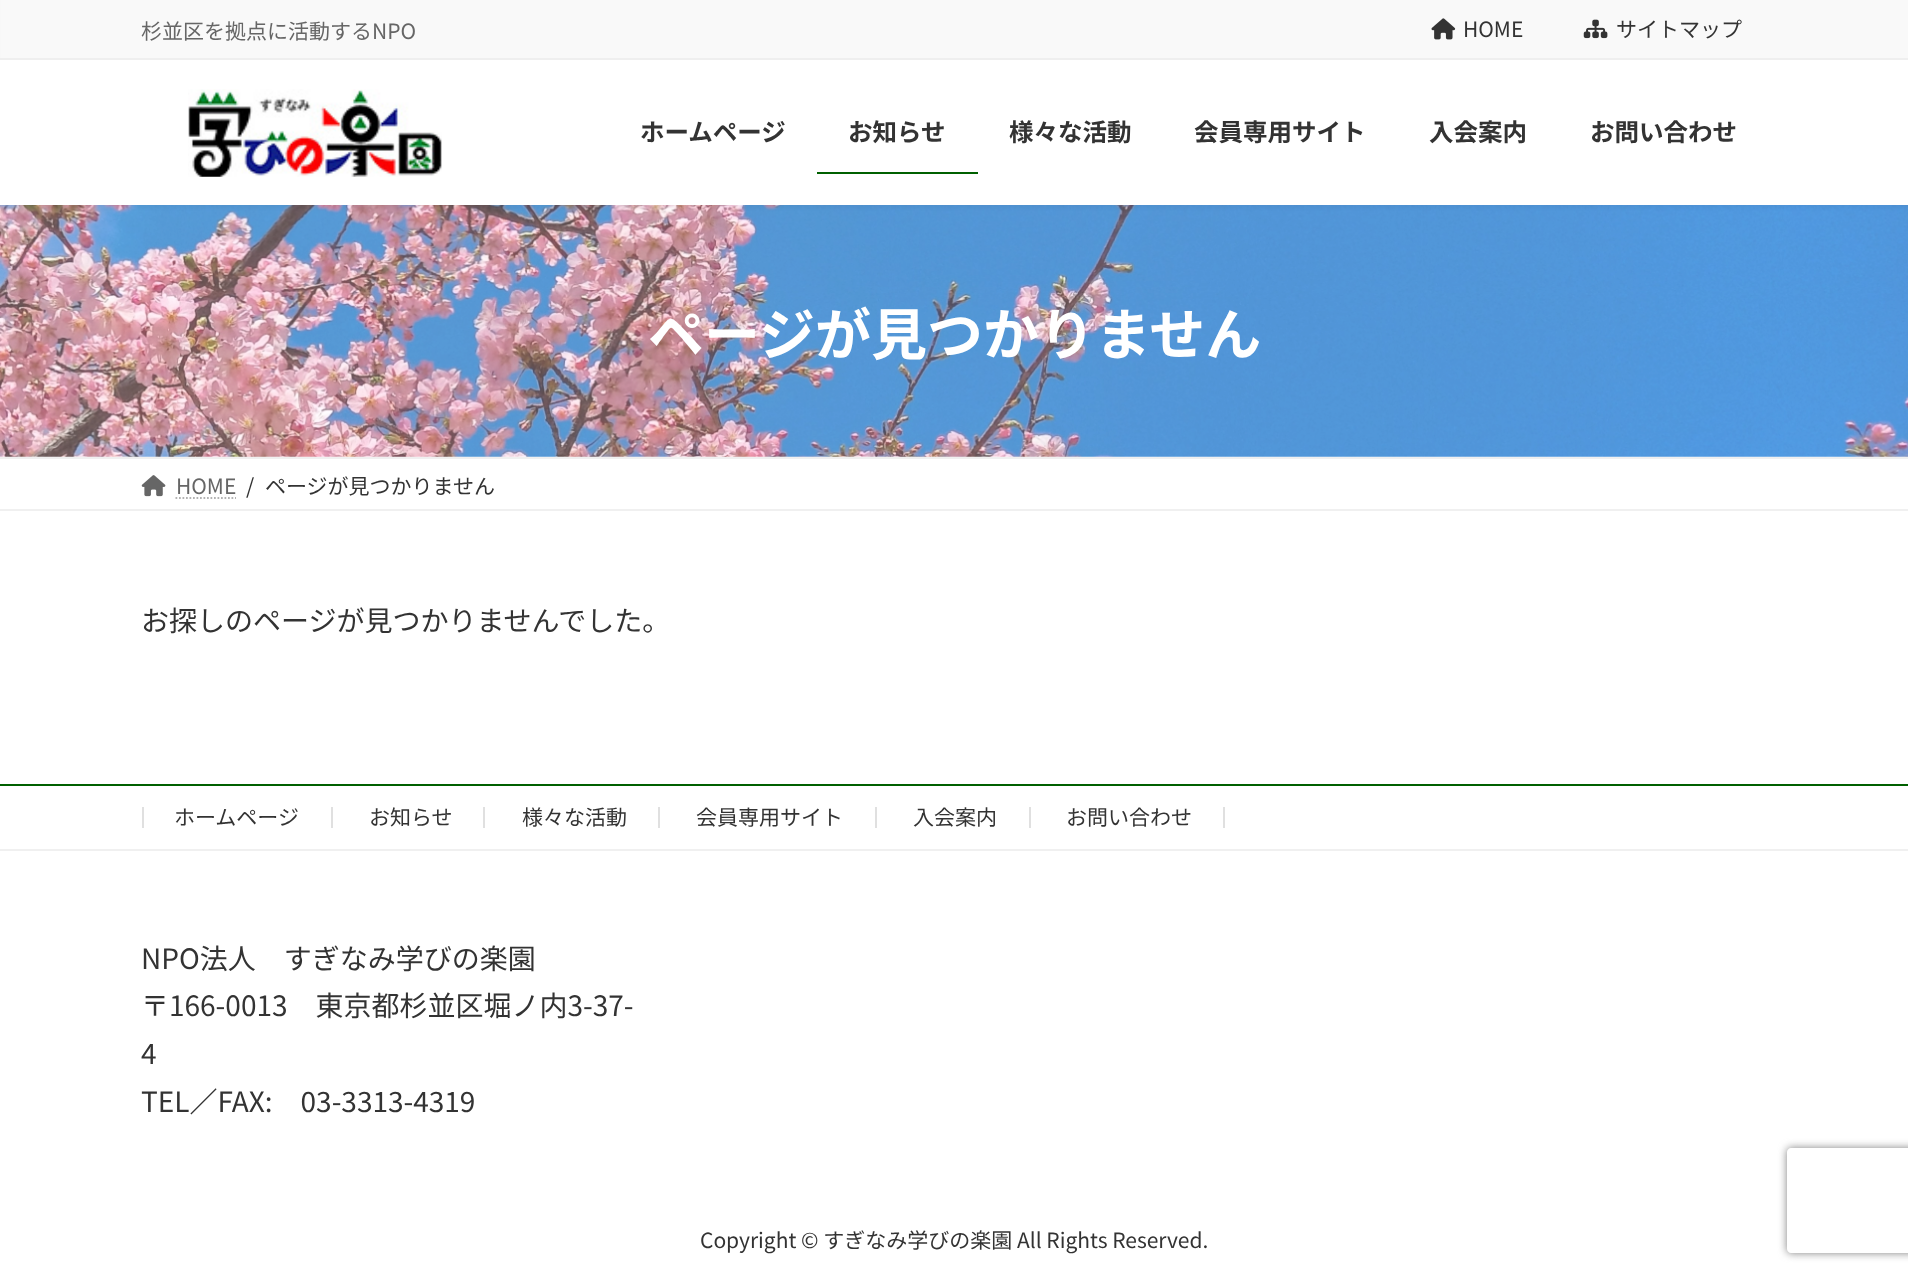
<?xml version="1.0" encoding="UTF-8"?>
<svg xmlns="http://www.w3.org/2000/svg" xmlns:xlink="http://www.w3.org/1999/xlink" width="1908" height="1276">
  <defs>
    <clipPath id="clip1"><path d="M 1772 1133 h 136 v 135 h -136 z m 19 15 h 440 c 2 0 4 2 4 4 v 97 c 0 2 -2 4 -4 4 h -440 c -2 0 -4 -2 -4 -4 v -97 c 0 -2 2 -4 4 -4 z" clip-rule="evenodd" /></clipPath>
  </defs>
  <rect width="100%" height="100%" fill="#ffffff" />
  <image x="0" y="205" width="1908" height="252" xlink:href="image4.png" />
  <rect y="-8" width="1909" height="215" fill="#000000" fill-opacity="0.05" filter="blur(2.5px)" />
  <rect y="60" width="1908" height="145" fill="#ffffff" />
  <rect x="1" width="1907" height="58" fill="#f9f9f9" />
  <rect y="58" width="1908" height="2" fill="#efefef" />
  <image x="1431" y="18" width="25" height="22" xlink:href="image1.png" />
  <image x="1583" y="19" width="25" height="20" xlink:href="image2.png" />
  <image x="188" y="89" width="254" height="88" xlink:href="image3.png" />
  <rect x="817" y="172" width="161" height="2" fill="#006000" />
  <rect y="457" width="1908" height="2" fill="#f0f0f0" />
  <rect y="509" width="1908" height="2" fill="#f0f0f0" />
  <image x="141" y="475" width="25" height="22" xlink:href="image5.png" />
  <path d="M 175.5 498 h 60.5" fill="none" stroke="#b3b3b3" stroke-width="1.8" stroke-dasharray="1.75 1.75" />
  <rect y="784" width="1908" height="2" fill="#006000" />
  <rect y="849" width="1908" height="2" fill="#f0f0f0" />
  <rect x="331" y="807" width="2" height="21" fill="#e0e0e0" />
  <rect x="142" y="807" width="2" height="21" fill="#e0e0e0" />
  <rect x="483" y="807" width="2" height="21" fill="#e0e0e0" />
  <rect x="658" y="807" width="2" height="21" fill="#e0e0e0" />
  <rect x="875" y="807" width="2" height="21" fill="#e0e0e0" />
  <rect x="1029" y="807" width="2" height="21" fill="#e0e0e0" />
  <rect x="1223" y="807" width="2" height="21" fill="#e0e0e0" />
  <g clip-path="url(#clip1)">
    <rect x="1787" y="1148" width="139" height="105" rx="4" fill="#808080" filter="blur(4.5px)" />
  </g>
  <text x="141" y="39" style="font-family: Noto Sans JP; font-size: 21px; fill: #666666">杉並区を拠点に活動するNPO</text>
  <text x="1463" y="37" style="font-family: Noto Sans JP; font-size: 21px; fill: #333333">HOME</text>
  <text x="1616" y="37" style="font-family: Noto Sans JP; font-size: 21px; fill: #333333">サイトマップ</text>
  <text x="640" y="141" style="font-family: Noto Sans JP; font-size: 24.5px; font-weight: bold; fill: #333333">ホームページ</text>
  <text x="848" y="141" style="font-family: Noto Sans JP; font-size: 24.5px; font-weight: bold; fill: #333333">お知らせ</text>
  <text x="1009" y="141" style="font-family: Noto Sans JP; font-size: 24.5px; font-weight: bold; fill: #333333">様々な活動</text>
  <text x="1194" y="141" style="font-family: Noto Sans JP; font-size: 24.5px; font-weight: bold; fill: #333333">会員専用サイト</text>
  <text x="1429" y="141" style="font-family: Noto Sans JP; font-size: 24.5px; font-weight: bold; fill: #333333">入会案内</text>
  <text x="1590" y="141" style="font-family: Noto Sans JP; font-size: 24.5px; font-weight: bold; fill: #333333">お問い合わせ</text>
  <text x="648" y="355" style="font-family: Noto Sans JP; font-size: 56px; font-weight: bold; fill: #ffffff">ページが見つかりません</text>
  <text x="176" y="494" style="font-family: Noto Sans JP; font-size: 21px; fill: #666666">HOME</text>
  <text x="246" y="494" style="font-family: Noto Sans JP; font-size: 21px; fill: #333333">/</text>
  <text x="265" y="494" style="font-family: Noto Sans JP; font-size: 21px; fill: #333333">ページが見つかりません</text>
  <text x="141" y="631" style="font-family: Noto Sans JP; font-size: 28px; fill: #333333">お探しのページが見つかりませんでした。</text>
  <text x="174" y="825" style="font-family: Noto Sans JP; font-size: 21px; fill: #333333">ホームページ</text>
  <text x="369" y="825" style="font-family: Noto Sans JP; font-size: 21px; fill: #333333">お知らせ</text>
  <text x="522" y="825" style="font-family: Noto Sans JP; font-size: 21px; fill: #333333">様々な活動</text>
  <text x="696" y="825" style="font-family: Noto Sans JP; font-size: 21px; fill: #333333">会員専用サイト</text>
  <text x="913" y="825" style="font-family: Noto Sans JP; font-size: 21px; fill: #333333">入会案内</text>
  <text x="1066" y="825" style="font-family: Noto Sans JP; font-size: 21px; fill: #333333">お問い合わせ</text>
  <text x="141" y="969" style="font-family: Noto Sans JP; font-size: 28px; fill: #333333">NPO法人　すぎなみ学びの楽園</text>
  <text x="141" y="1016" style="font-family: Noto Sans JP; font-size: 28px; fill: #333333">〒166-0013　東京都杉並区堀ノ内3-37-</text>
  <text x="141" y="1064" style="font-family: Noto Sans JP; font-size: 28px; fill: #333333">4</text>
  <text x="141" y="1112" style="font-family: Noto Sans JP; font-size: 28px; fill: #333333">TEL／FAX:　03-3313-4319</text>
  <text x="700" y="1248" style="font-family: Noto Sans JP; font-size: 21px; fill: #333333">Copyright © すぎなみ学びの楽園 All Rights Reserved.</text>
</svg>
